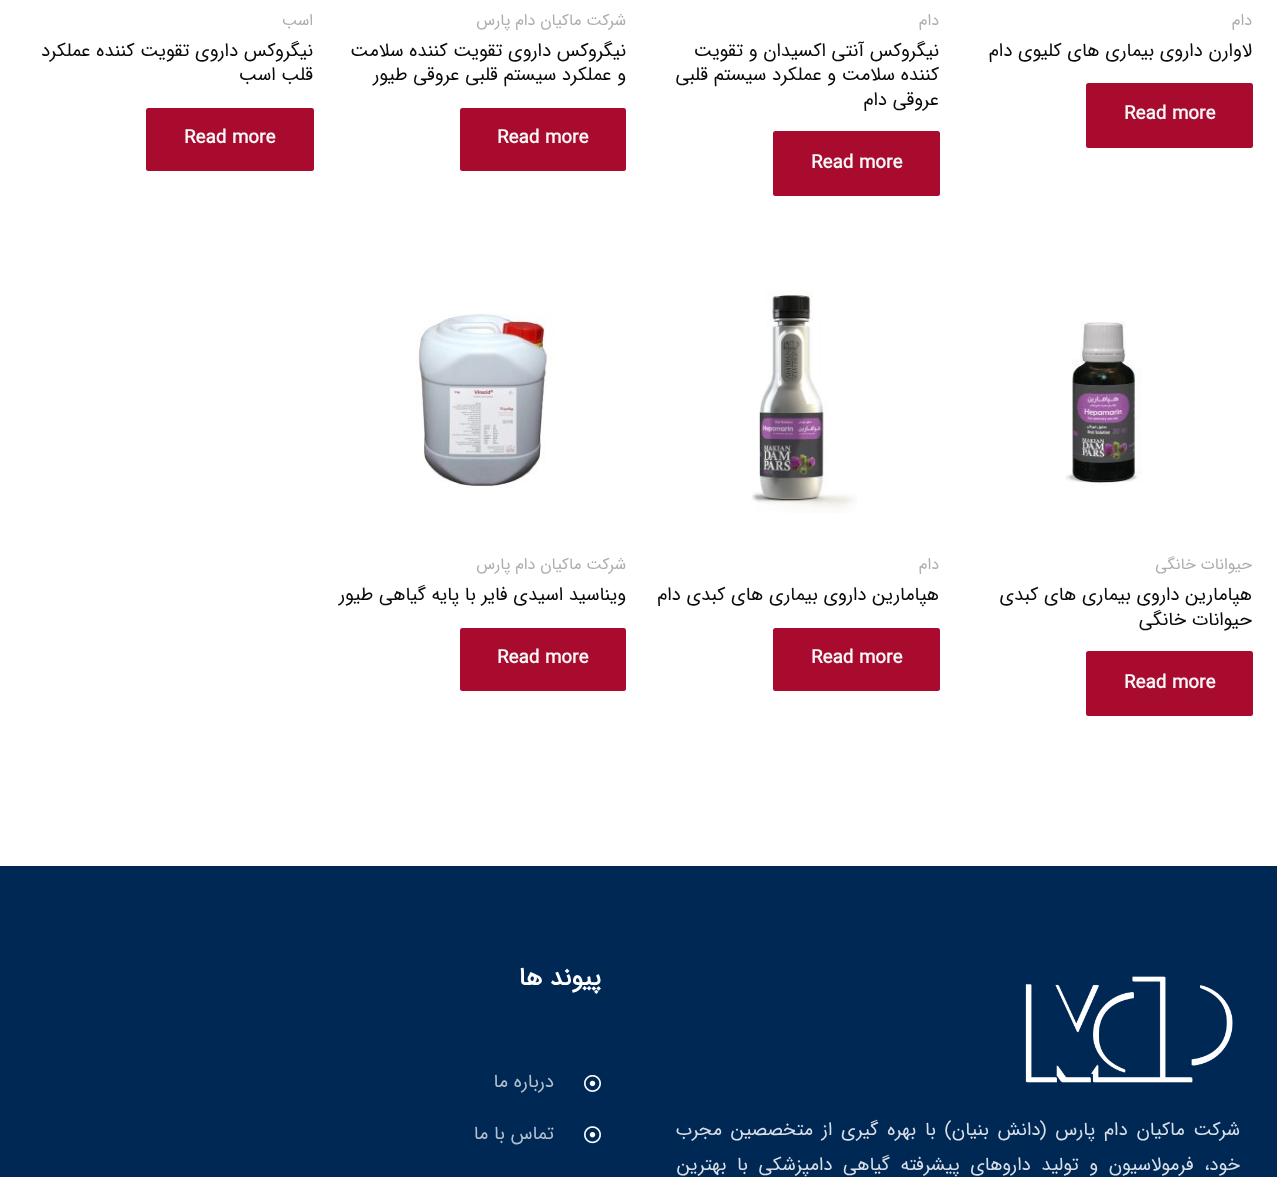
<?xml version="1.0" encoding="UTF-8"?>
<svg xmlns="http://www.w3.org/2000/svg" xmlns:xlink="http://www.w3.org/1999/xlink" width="1277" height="1177">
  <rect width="100%" height="100%" fill="#ffffff" />
  <rect x="1086" y="83" width="167" height="65" rx="2.5" fill="#a90b2e" />
  <rect x="773" y="131" width="167" height="65" rx="2.5" fill="#a90b2e" />
  <rect x="460" y="108" width="166" height="63" rx="2.5" fill="#a90b2e" />
  <rect x="146" y="108" width="168" height="63" rx="2.5" fill="#a90b2e" />
  <image x="1065" y="321" width="77" height="165" xlink:href="image1.png" />
  <rect x="1086" y="651" width="167" height="65" rx="2.5" fill="#a90b2e" />
  <image x="751" y="290" width="106" height="223" xlink:href="image2.png" />
  <rect x="773" y="628" width="167" height="63" rx="2.5" fill="#a90b2e" />
  <image x="416" y="313" width="138" height="175" xlink:href="image3.png" />
  <rect x="460" y="628" width="166" height="63" rx="2.5" fill="#a90b2e" />
  <rect y="866" width="1277" height="311" fill="#002855" />
  <image x="1025" y="976" width="208" height="107" xlink:href="image4.png" />
  <image x="584" y="1075" width="17" height="17" xlink:href="image5.png" />
  <image x="584" y="1126" width="17" height="18" xlink:href="image6.png" />
  <text x="1252" y="25" style="font-family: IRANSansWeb; font-size: 16px; direction: rtl; fill: #adadad">دام</text>
  <text x="1252" y="56" style="font-family: IRANSansWeb; font-size: 18.75px; direction: rtl; fill: #0a0a0a">لاوارن داروی بیماری های کلیوی دام</text>
  <text x="1124" y="119" style="font-family: IRANSansWeb; font-size: 18.75px; font-weight: bold; fill: #f7f7f7">Read more</text>
  <text x="939" y="25" style="font-family: IRANSansWeb; font-size: 16px; direction: rtl; fill: #adadad">دام</text>
  <text x="939" y="56" style="font-family: IRANSansWeb; font-size: 18.75px; direction: rtl; fill: #0a0a0a">نیگروکس آنتی اکسیدان و تقویت</text>
  <text x="939" y="80" style="font-family: IRANSansWeb; font-size: 18.75px; direction: rtl; fill: #0a0a0a">کننده سلامت و عملکرد سیستم قلبی</text>
  <text x="939" y="105" style="font-family: IRANSansWeb; font-size: 18.75px; direction: rtl; fill: #0a0a0a">عروقی دام</text>
  <text x="811" y="168" style="font-family: IRANSansWeb; font-size: 18.75px; font-weight: bold; fill: #f7f7f7">Read more</text>
  <text x="626" y="25" style="font-family: IRANSansWeb; font-size: 16px; direction: rtl; fill: #adadad">شرکت ماکیان دام پارس</text>
  <text x="626" y="56" style="font-family: IRANSansWeb; font-size: 18.75px; direction: rtl; fill: #0a0a0a">نیگروکس داروی تقویت کننده سلامت</text>
  <text x="626" y="80" style="font-family: IRANSansWeb; font-size: 18.75px; direction: rtl; fill: #0a0a0a">و عملکرد سیستم قلبی عروقی طیور</text>
  <text x="497" y="143" style="font-family: IRANSansWeb; font-size: 18.75px; font-weight: bold; fill: #f7f7f7">Read more</text>
  <text x="313" y="25" style="font-family: IRANSansWeb; font-size: 16px; direction: rtl; fill: #adadad">اسب</text>
  <text x="313" y="56" style="font-family: IRANSansWeb; font-size: 18.75px; direction: rtl; fill: #0a0a0a">نیگروکس داروی تقویت کننده عملکرد</text>
  <text x="313" y="80" style="font-family: IRANSansWeb; font-size: 18.75px; direction: rtl; fill: #0a0a0a">قلب اسب</text>
  <text x="184" y="143" style="font-family: IRANSansWeb; font-size: 18.75px; font-weight: bold; fill: #f7f7f7">Read more</text>
  <text x="1252" y="569" style="font-family: IRANSansWeb; font-size: 16px; direction: rtl; fill: #adadad">حیوانات خانگی</text>
  <text x="1252" y="600" style="font-family: IRANSansWeb; font-size: 18.75px; direction: rtl; fill: #0a0a0a">هپامارین داروی بیماری های کبدی</text>
  <text x="1252" y="625" style="font-family: IRANSansWeb; font-size: 18.75px; direction: rtl; fill: #0a0a0a">حیوانات خانگی</text>
  <text x="1124" y="688" style="font-family: IRANSansWeb; font-size: 18.75px; font-weight: bold; fill: #f7f7f7">Read more</text>
  <text x="939" y="569" style="font-family: IRANSansWeb; font-size: 16px; direction: rtl; fill: #adadad">دام</text>
  <text x="939" y="600" style="font-family: IRANSansWeb; font-size: 18.75px; direction: rtl; fill: #0a0a0a">هپامارین داروی بیماری های کبدی دام</text>
  <text x="811" y="663" style="font-family: IRANSansWeb; font-size: 18.75px; font-weight: bold; fill: #f7f7f7">Read more</text>
  <text x="626" y="569" style="font-family: IRANSansWeb; font-size: 16px; direction: rtl; fill: #adadad">شرکت ماکیان دام پارس</text>
  <text x="626" y="600" style="font-family: IRANSansWeb; font-size: 18.75px; direction: rtl; fill: #0a0a0a">ویناسید اسیدی فایر با پایه گیاهی طیور</text>
  <text x="497" y="663" style="font-family: IRANSansWeb; font-size: 18.75px; font-weight: bold; fill: #f7f7f7">Read more</text>
  <text x="1240" y="1135" word-spacing="3.1" style="font-family: IRANSansWeb; font-size: 18.75px; direction: rtl; fill: #d9dfe6">شرکت ماکیان دام پارس (دانش بنیان) با بهره گیری از متخصصین مجرب</text>
  <text x="1240" y="1170" word-spacing="5" style="font-family: IRANSansWeb; font-size: 18.75px; direction: rtl; fill: #d9dfe6">خود، فرمولاسیون و تولید داروهای پیشرفته گیاهی دامپزشکی با بهترین</text>
  <text x="601" y="985" style="font-family: 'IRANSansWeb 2'; font-size: 25px; font-weight: bold; direction: rtl; fill: #ffffff">پیوند ها</text>
  <text x="554" y="1087" style="font-family: 'IRANSansWeb 2'; font-size: 18.75px; direction: rtl; fill: #b3bfcc">درباره ما</text>
  <text x="554" y="1139" style="font-family: 'IRANSansWeb 2'; font-size: 18.75px; direction: rtl; fill: #b3bfcc">تماس با ما</text>
</svg>
